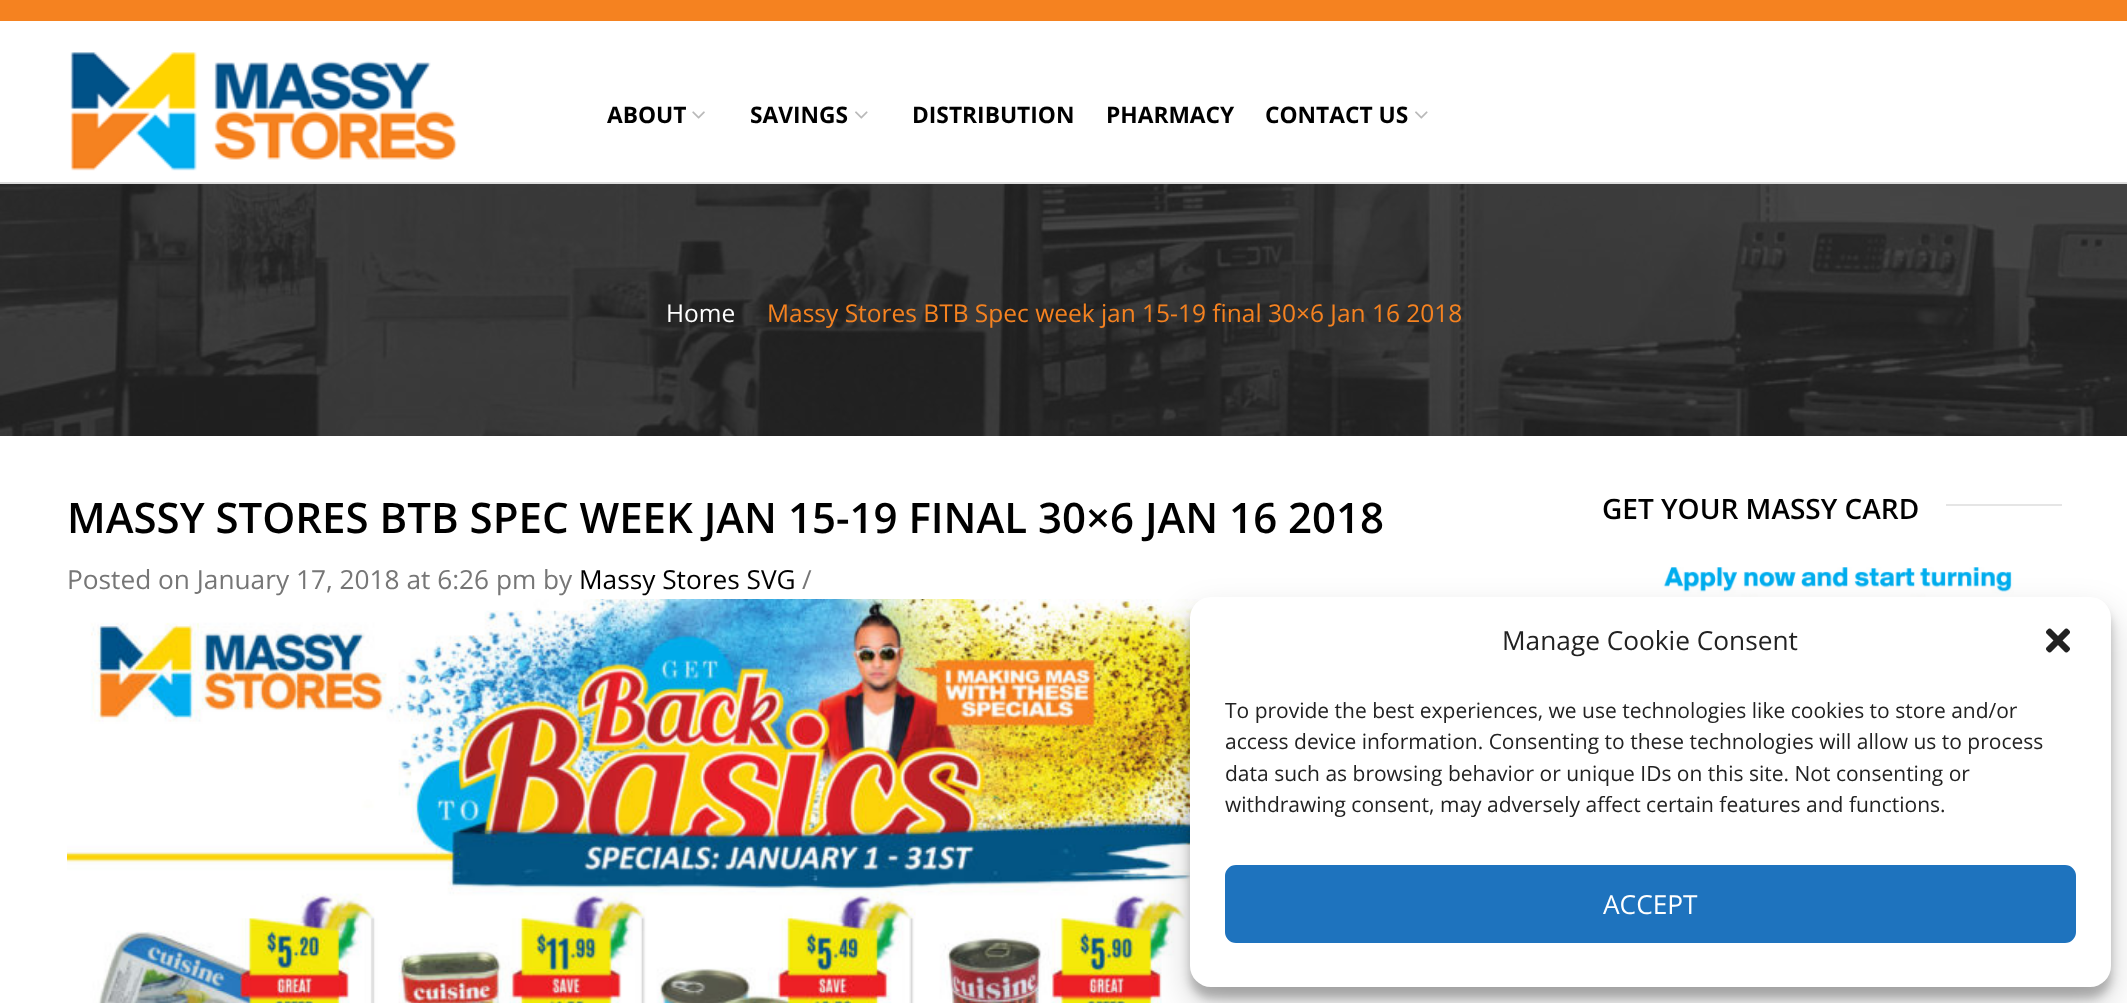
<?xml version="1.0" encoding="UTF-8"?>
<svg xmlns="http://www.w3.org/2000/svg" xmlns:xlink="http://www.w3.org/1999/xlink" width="2127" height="1003">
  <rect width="100%" height="100%" fill="#ffffff" />
  <rect width="2127" height="21" fill="#f58220" />
  <image x="70" y="52" width="387" height="119" xlink:href="image1.png" />
  <image x="692" y="111" width="13" height="8" xlink:href="image2.png" />
  <image x="855" y="111" width="13" height="8" xlink:href="image3.png" />
  <image x="1415" y="111" width="13" height="8" xlink:href="image3.png" />
  <image x="0" y="184" width="2127" height="252" xlink:href="image4.png" />
  <rect y="182" width="2127" height="2" fill="#dddddd" />
  <image x="67" y="599" width="1155" height="404" xlink:href="image5.png" />
  <rect x="1946" y="504" width="116" height="2" fill="#e5e5e5" />
  <image x="1640" y="567" width="385" height="30" xlink:href="image6.png" />
  <rect x="1190" y="607" width="921" height="391" rx="21" fill="#000000" fill-opacity="0.23" filter="blur(5px)" />
  <rect x="1190" y="614" width="921" height="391" rx="21" fill="#000000" fill-opacity="0.19" filter="blur(17.5px)" />
  <rect x="1190" y="597" width="921" height="390" rx="21" fill="#ffffff" />
  <image x="2046" y="628" width="24" height="25" xlink:href="image7.png" />
  <rect x="1226" y="866" width="849" height="76" rx="10" fill="#1e73be" stroke="#1e73be" stroke-width="2" />
  <text x="607" y="123" style="font-family: Open Sans; font-size: 22.75px; font-weight: bold; fill: #000000">ABOUT</text>
  <text x="750" y="123" style="font-family: Open Sans; font-size: 22.75px; font-weight: bold; fill: #000000">SAVINGS</text>
  <text x="912" y="123" style="font-family: Open Sans; font-size: 22.75px; font-weight: bold; fill: #000000">DISTRIBUTION</text>
  <text x="1106" y="123" style="font-family: Open Sans; font-size: 22.75px; font-weight: bold; fill: #000000">PHARMACY</text>
  <text x="1265" y="123" style="font-family: Open Sans; font-size: 22.75px; font-weight: bold; fill: #000000">CONTACT US</text>
  <text x="666" y="322" style="font-family: Open Sans; font-size: 24.5px; fill: #ffffff">Home</text>
  <text x="767" y="322" style="font-family: Open Sans; font-size: 24.5px; fill: #f58220">Massy Stores BTB Spec week jan 15-19 final 30×6 Jan 16 2018</text>
  <text x="67" y="533" style="font-family: Open Sans; font-size: 42px; font-weight: 600; fill: #000000">MASSY STORES BTB SPEC WEEK JAN 15-19 FINAL 30×6 JAN 16 2018</text>
  <text x="67" y="589" style="font-family: Open Sans; font-size: 26.25px; fill: #767676">Posted on January 17, 2018 at 6:26 pm by</text>
  <text x="579" y="589" style="font-family: Open Sans; font-size: 26.25px; fill: #000000">Massy Stores SVG</text>
  <text x="802" y="589" style="font-family: Open Sans; font-size: 26.25px; fill: #767676">/</text>
  <text x="1602" y="519" style="font-family: Open Sans; font-size: 28px; font-weight: 600; fill: #000000">GET YOUR MASSY CARD</text>
  <text x="1502" y="650" style="font-family: Open Sans; font-size: 26.25px; fill: #222222">Manage Cookie Consent</text>
  <text x="1225" y="718" style="font-family: Open Sans; font-size: 21px; fill: #222222">To provide the best experiences, we use technologies like cookies to store and/or</text>
  <text x="1225" y="749" style="font-family: Open Sans; font-size: 21px; fill: #222222">access device information. Consenting to these technologies will allow us to process</text>
  <text x="1225" y="781" style="font-family: Open Sans; font-size: 21px; fill: #222222">data such as browsing behavior or unique IDs on this site. Not consenting or</text>
  <text x="1225" y="812" style="font-family: Open Sans; font-size: 21px; fill: #222222">withdrawing consent, may adversely affect certain features and functions.</text>
  <text x="1603" y="914" style="font-family: Open Sans; font-size: 26.25px; fill: #ffffff">ACCEPT</text>
</svg>
